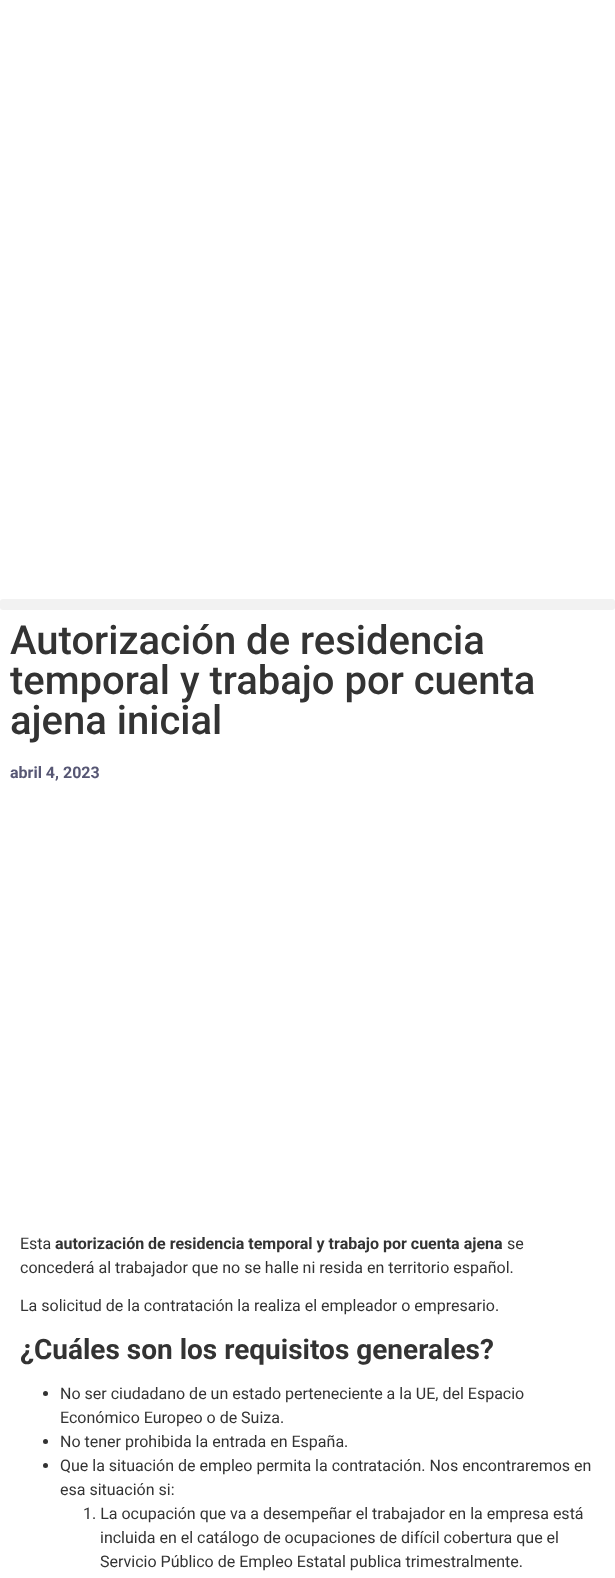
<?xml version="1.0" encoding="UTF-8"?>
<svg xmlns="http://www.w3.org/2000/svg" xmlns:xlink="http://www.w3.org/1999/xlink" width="615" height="1578">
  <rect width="100%" height="100%" fill="#ffffff" />
  <rect y="599" width="615" height="11" rx="3" fill="#f2f2f2" />
  <circle cx="45.5" cy="1393.5" r="2.5" fill="#333333" />
  <circle cx="45.5" cy="1441.5" r="2.5" fill="#333333" />
  <circle cx="45.5" cy="1465.5" r="2.5" fill="#333333" />
  <text x="10" y="654" style="font-family: Roboto; font-size: 40px; font-weight: 500; fill: #333333">Autorización de residencia</text>
  <text x="10" y="694" style="font-family: Roboto; font-size: 40px; font-weight: 500; fill: #333333">temporal y trabajo por cuenta</text>
  <text x="10" y="734" style="font-family: Roboto; font-size: 40px; font-weight: 500; fill: #333333">ajena inicial</text>
  <text x="10" y="778" style="font-family: Roboto; font-size: 16px; font-weight: bold; fill: #575774">abril 4, 2023</text>
  <text x="20" y="1249" style="font-family: Roboto; font-size: 16px; fill: #333333">Esta</text>
  <text x="55" y="1249" style="font-family: Roboto; font-size: 16px; font-weight: bold; fill: #333333">autorización de residencia temporal y trabajo por cuenta ajena</text>
  <text x="507" y="1249" style="font-family: Roboto; font-size: 16px; fill: #333333">se</text>
  <text x="20" y="1273" style="font-family: Roboto; font-size: 16px; fill: #333333">concederá al trabajador que no se halle ni resida en territorio español.</text>
  <text x="20" y="1311" style="font-family: Roboto; font-size: 16px; fill: #333333">La solicitud de la contratación la realiza el empleador o empresario.</text>
  <text x="20" y="1359" style="font-family: Roboto; font-size: 28px; font-weight: bold; fill: #333333">¿Cuáles son los requisitos generales?</text>
  <text x="60" y="1399" style="font-family: Roboto; font-size: 16px; fill: #333333">No ser ciudadano de un estado perteneciente a la UE, del Espacio</text>
  <text x="60" y="1423" style="font-family: Roboto; font-size: 16px; fill: #333333">Económico Europeo o de Suiza.</text>
  <text x="60" y="1447" style="font-family: Roboto; font-size: 16px; fill: #333333">No tener prohibida la entrada en España.</text>
  <text x="60" y="1471" style="font-family: Roboto; font-size: 16px; fill: #333333">Que la situación de empleo permita la contratación. Nos encontraremos en</text>
  <text x="60" y="1495" style="font-family: Roboto; font-size: 16px; fill: #333333">esa situación si:</text>
  <text x="83" y="1519" style="font-family: Roboto; font-size: 16px; fill: #333333">1. La ocupación que va a desempeñar el trabajador en la empresa está</text>
  <text x="100" y="1543" style="font-family: Roboto; font-size: 16px; fill: #333333">incluida en el catálogo de ocupaciones de difícil cobertura que el</text>
  <text x="100" y="1567" style="font-family: Roboto; font-size: 16px; fill: #333333">Servicio Público de Empleo Estatal publica trimestralmente.</text>
</svg>
